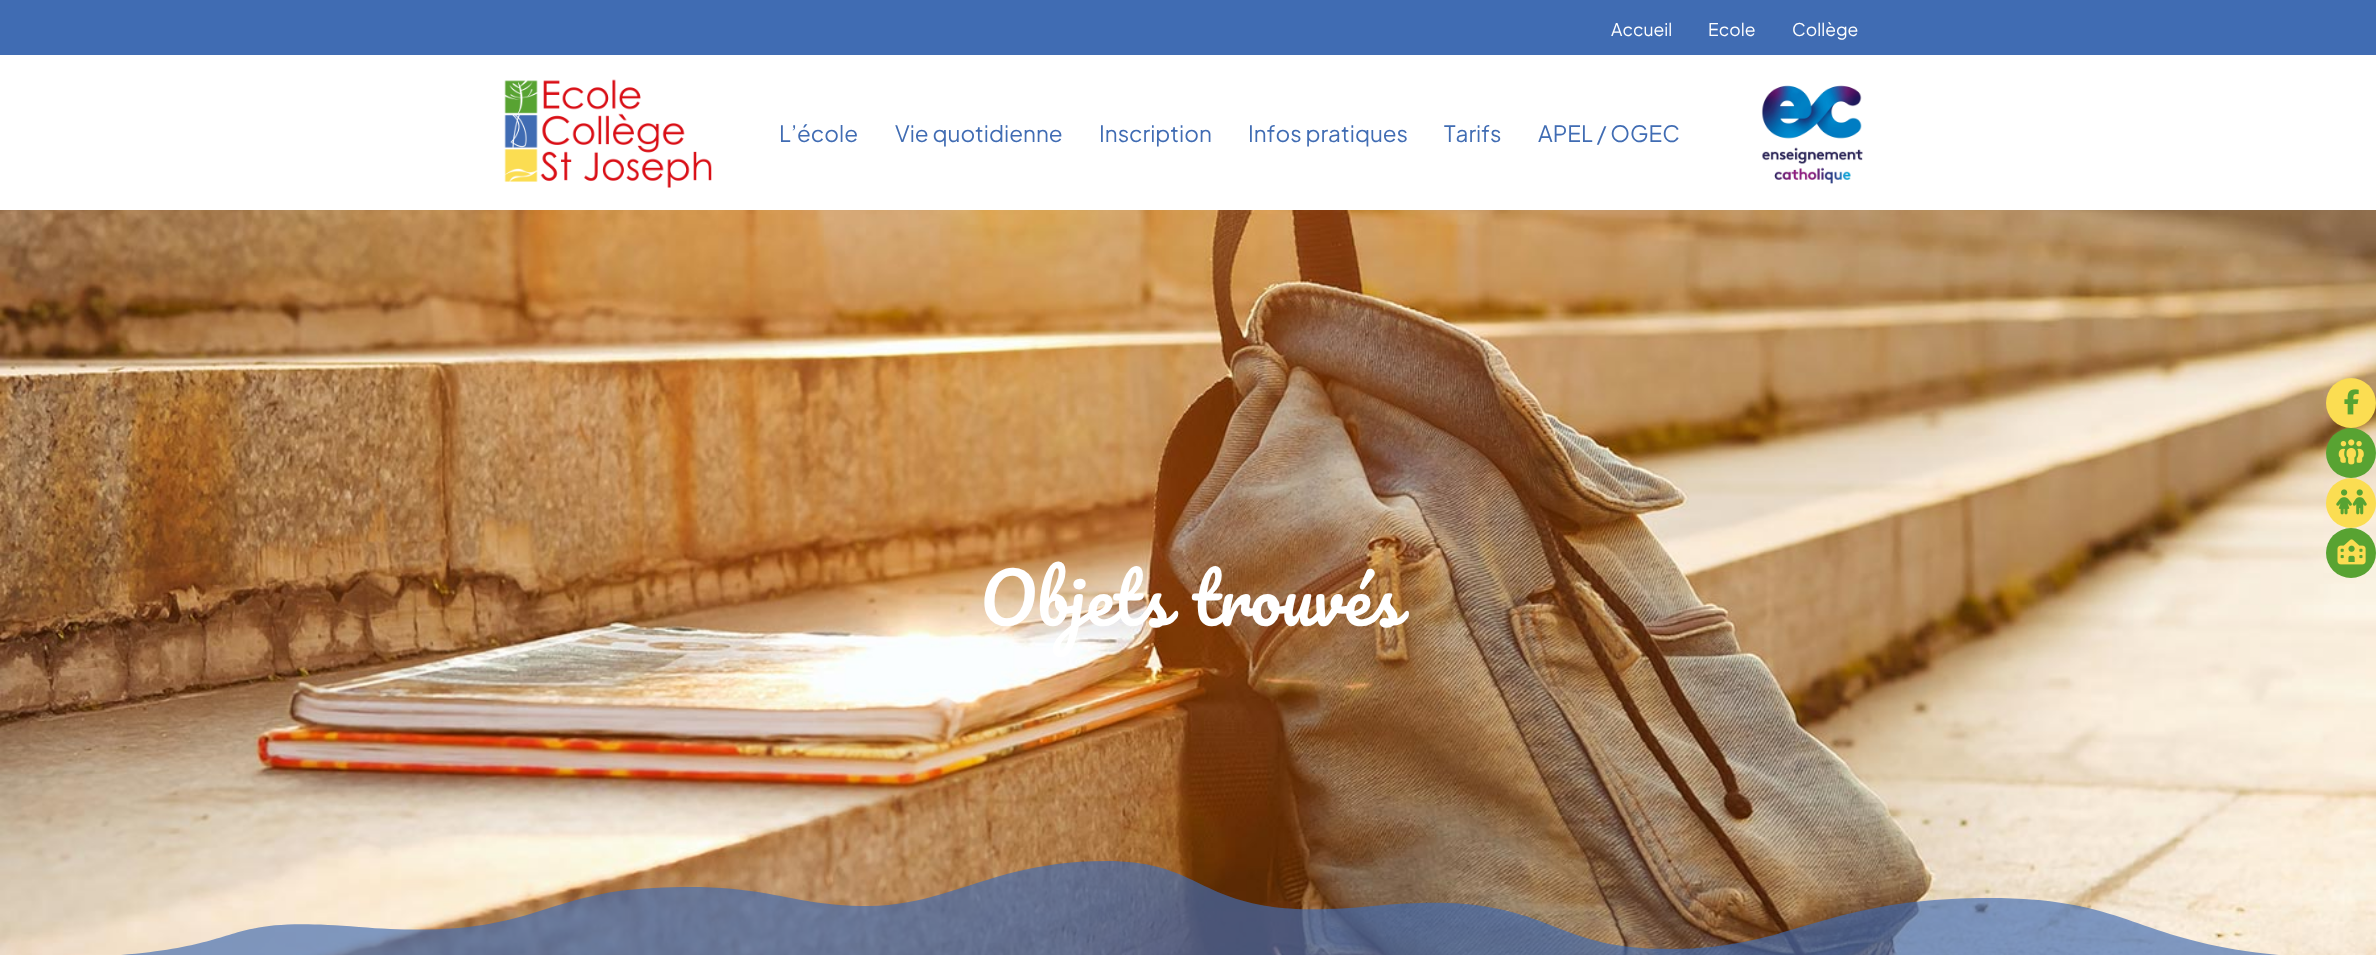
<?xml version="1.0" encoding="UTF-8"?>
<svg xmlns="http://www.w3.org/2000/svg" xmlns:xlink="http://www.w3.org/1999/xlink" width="2376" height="955">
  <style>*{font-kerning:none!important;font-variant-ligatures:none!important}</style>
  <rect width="100%" height="100%" fill="#ffffff" />
  <rect width="2376" height="55" fill="#406cb3" />
  <image x="504" y="79" width="208" height="109" xlink:href="image1.png" />
  <image x="1761" y="85" width="102" height="99" xlink:href="image2.png" />
  <image x="0" y="210" width="2376" height="745" xlink:href="image3.png" />
  <path d="M 0 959 h 2376 c -246 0 -219 -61 -387 -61 c -167 0 -194 51 -322 51 c -129 0 -115 -61 -294 -43 c -180 18 -155 -45 -267 -45 c -112 0 -156 45 -238 45 c -82 0 -98 -24 -214 -18 c -117 5 -121 53 -295 39 c -175 -14 -77 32 -359 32 z" fill="#406cb3" fill-opacity="0.66" />
  <circle cx="2351" cy="403" r="25" fill="#fbdd52" />
  <image x="2344" y="389" width="15" height="26" xlink:href="image4.png" />
  <circle cx="2351" cy="453" r="25" fill="#58a332" />
  <image x="2338" y="439" width="26" height="26" xlink:href="image5.png" />
  <circle cx="2351" cy="503" r="25" fill="#fbdd52" />
  <image x="2336" y="489" width="31" height="26" xlink:href="image6.png" />
  <circle cx="2351" cy="553" r="25" fill="#58a332" />
  <image x="2337" y="539" width="29" height="26" xlink:href="image7.png" />
  <text x="1611" y="36" style="font-family: Plus Jakarta Sans; font-size: 17.5px; fill: #ffffff">Accueil</text>
  <text x="1708" y="36" style="font-family: Plus Jakarta Sans; font-size: 17.5px; fill: #ffffff">Ecole</text>
  <text x="1792" y="36" style="font-family: Plus Jakarta Sans; font-size: 17.5px; fill: #ffffff">Collège</text>
  <text x="779" y="142" style="font-family: Plus Jakarta Sans; font-size: 22.5px; fill: #406cb3">L’école</text>
  <text x="895" y="142" style="font-family: Plus Jakarta Sans; font-size: 22.5px; fill: #406cb3">Vie quotidienne</text>
  <text x="1099" y="142" style="font-family: Plus Jakarta Sans; font-size: 22.5px; fill: #406cb3">Inscription</text>
  <text x="1248" y="142" style="font-family: Plus Jakarta Sans; font-size: 22.5px; fill: #406cb3">Infos pratiques</text>
  <text x="1444" y="142" style="font-family: Plus Jakarta Sans; font-size: 22.5px; fill: #406cb3">Tarifs</text>
  <text x="1538" y="142" style="font-family: Plus Jakarta Sans; font-size: 22.5px; fill: #406cb3">APEL / OGEC</text>
  <text x="980" y="626" word-spacing="4" style="font-family: Pacifico; font-size: 68.75px; fill: #ffffff">Objets trouvés</text>
</svg>
